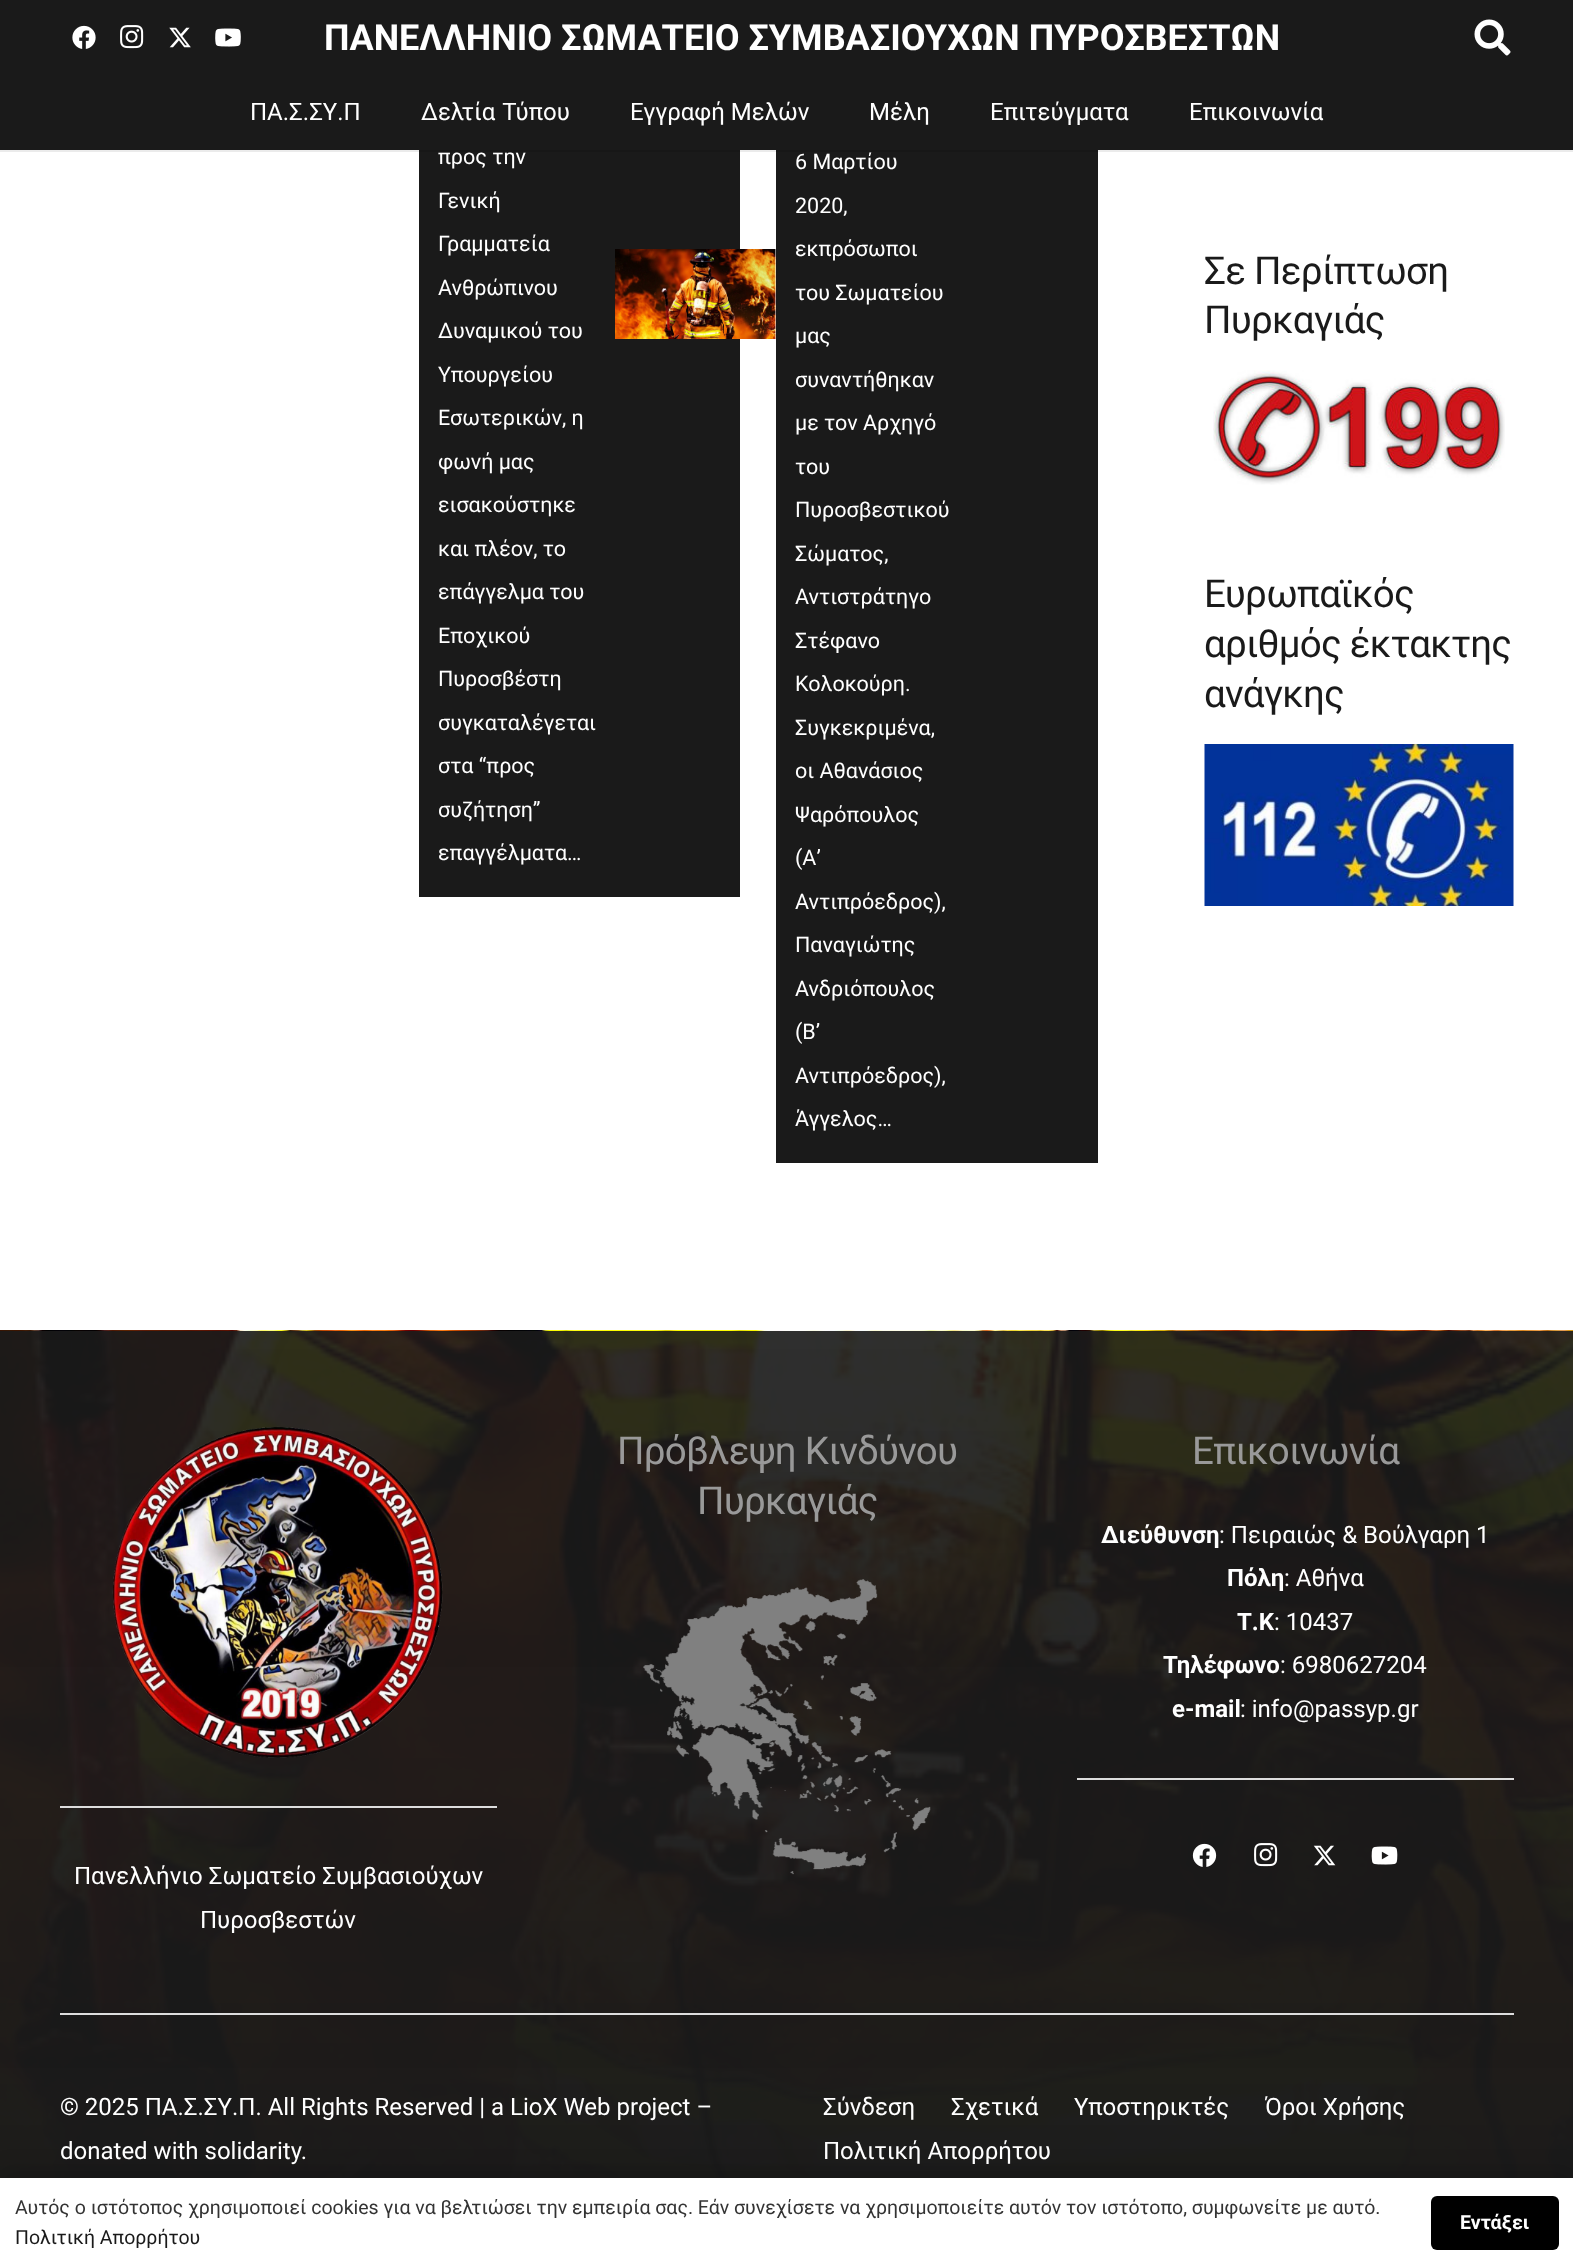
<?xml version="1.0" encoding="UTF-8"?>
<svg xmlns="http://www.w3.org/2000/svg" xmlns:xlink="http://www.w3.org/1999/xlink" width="1573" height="2268">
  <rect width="100%" height="100%" fill="#ffffff" />
  <rect width="1573" height="150" fill="#1a1a1a" />
  <image x="72" y="25" width="24" height="24" xlink:href="image1.png" />
  <image x="120" y="25" width="24" height="24" xlink:href="image2.png" />
  <image x="169" y="27" width="22" height="21" xlink:href="image3.png" />
  <image x="215" y="28" width="26" height="19" xlink:href="image4.png" />
  <image x="1474" y="19" width="37" height="37" xlink:href="image5.png" />
  <rect x="419" y="150" width="321" height="747" fill="#1a1a1a" />
  <rect x="776" y="150" width="322" height="1013" fill="#1a1a1a" />
  <path d="M 0 150 v 2 h 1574 v -75 v 73 z" fill="#000000" fill-opacity="0.08" />
  <image x="615" y="249" width="161" height="90" xlink:href="image6.png" />
  <image x="1213" y="370" width="292" height="115" xlink:href="image7.png" />
  <image x="1204" y="744" width="310" height="162" xlink:href="image8.png" />
  <image x="0" y="1330" width="1573" height="848" xlink:href="image9.png" />
  <image x="643" y="1579" width="288" height="296" xlink:href="image10.png" />
  <rect x="1077" y="1778" width="437" height="2" fill="#dddddd" />
  <image x="1192" y="1843" width="25" height="24" xlink:href="image11.png" />
  <image x="1254" y="1843" width="24" height="24" xlink:href="image12.png" />
  <image x="1313" y="1845" width="23" height="21" xlink:href="image13.png" />
  <image x="1371" y="1846" width="27" height="19" xlink:href="image14.png" />
  <image x="112" y="1426" width="331" height="332" xlink:href="image15.png" />
  <rect x="60" y="1806" width="437" height="2" fill="#dddddd" />
  <rect x="60" y="2013" width="1454" height="2" fill="#dddddd" />
  <rect y="2171" width="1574" height="90" fill="#000000" fill-opacity="0.15" filter="blur(11px)" />
  <rect y="2178" width="1573" height="90" fill="#ffffff" />
  <rect x="1431" y="2196" width="128" height="54" rx="6" fill="#000000" />
  <text x="324" y="50" style="font-family: Roboto; font-size: 36px; font-weight: bold; fill: #ffffff">ΠΑΝΕΛΛΗΝΙΟ ΣΩΜΑΤΕΙΟ ΣΥΜΒΑΣΙΟΥΧΩΝ ΠΥΡΟΣΒΕΣΤΩΝ</text>
  <text x="250" y="120" style="font-family: Roboto; font-size: 24px; fill: #ffffff">ΠΑ.Σ.ΣΥ.Π</text>
  <text x="421" y="120" word-spacing="1" style="font-family: Roboto; font-size: 24px; fill: #ffffff">Δελτία Τύπου</text>
  <text x="630" y="120" style="font-family: Roboto; font-size: 24px; fill: #ffffff">Εγγραφή Μελών</text>
  <text x="869" y="120" style="font-family: Roboto; font-size: 24px; fill: #ffffff">Μέλη</text>
  <text x="990" y="120" style="font-family: Roboto; font-size: 24px; fill: #ffffff">Επιτεύγματα</text>
  <text x="1189" y="120" style="font-family: Roboto; font-size: 24px; fill: #ffffff">Επικοινωνία</text>
  <text x="438" y="164" style="font-family: Roboto; font-size: 21.5px; fill: #ffffff">προς την</text>
  <text x="438" y="208" style="font-family: Roboto; font-size: 21.5px; fill: #ffffff">Γενική</text>
  <text x="438" y="251" style="font-family: Roboto; font-size: 21.5px; fill: #ffffff">Γραμματεία</text>
  <text x="438" y="295" style="font-family: Roboto; font-size: 21.5px; fill: #ffffff">Ανθρώπινου</text>
  <text x="438" y="338" style="font-family: Roboto; font-size: 21.5px; fill: #ffffff">Δυναμικού του</text>
  <text x="438" y="382" style="font-family: Roboto; font-size: 21.5px; fill: #ffffff">Υπουργείου</text>
  <text x="438" y="425" style="font-family: Roboto; font-size: 21.5px; fill: #ffffff">Εσωτερικών, η</text>
  <text x="438" y="469" style="font-family: Roboto; font-size: 21.5px; fill: #ffffff">φωνή μας</text>
  <text x="438" y="512" style="font-family: Roboto; font-size: 21.5px; fill: #ffffff">εισακούστηκε</text>
  <text x="438" y="556" style="font-family: Roboto; font-size: 21.5px; fill: #ffffff">και πλέον, το</text>
  <text x="438" y="599" style="font-family: Roboto; font-size: 21.5px; fill: #ffffff">επάγγελμα του</text>
  <text x="438" y="643" style="font-family: Roboto; font-size: 21.5px; fill: #ffffff">Εποχικού</text>
  <text x="438" y="686" style="font-family: Roboto; font-size: 21.5px; fill: #ffffff">Πυροσβέστη</text>
  <text x="438" y="730" style="font-family: Roboto; font-size: 21.5px; fill: #ffffff">συγκαταλέγεται</text>
  <text x="438" y="773" style="font-family: Roboto; font-size: 21.5px; fill: #ffffff">στα “προς</text>
  <text x="438" y="817" style="font-family: Roboto; font-size: 21.5px; fill: #ffffff">συζήτηση”</text>
  <text x="438" y="860" style="font-family: Roboto; font-size: 21.5px; fill: #ffffff">επαγγέλματα…</text>
  <text x="795" y="169" style="font-family: Roboto; font-size: 21.5px; fill: #ffffff">6 Μαρτίου</text>
  <text x="795" y="213" style="font-family: Roboto; font-size: 21.5px; fill: #ffffff">2020,</text>
  <text x="795" y="256" style="font-family: Roboto; font-size: 21.5px; fill: #ffffff">εκπρόσωποι</text>
  <text x="795" y="300" style="font-family: Roboto; font-size: 21.5px; fill: #ffffff">του Σωματείου</text>
  <text x="795" y="343" style="font-family: Roboto; font-size: 21.5px; fill: #ffffff">μας</text>
  <text x="795" y="387" style="font-family: Roboto; font-size: 21.5px; fill: #ffffff">συναντήθηκαν</text>
  <text x="795" y="430" style="font-family: Roboto; font-size: 21.5px; fill: #ffffff">με τον Αρχηγό</text>
  <text x="795" y="474" style="font-family: Roboto; font-size: 21.5px; fill: #ffffff">του</text>
  <text x="795" y="517" style="font-family: Roboto; font-size: 21.5px; fill: #ffffff">Πυροσβεστικού</text>
  <text x="795" y="561" style="font-family: Roboto; font-size: 21.5px; fill: #ffffff">Σώματος,</text>
  <text x="795" y="604" style="font-family: Roboto; font-size: 21.5px; fill: #ffffff">Αντιστράτηγο</text>
  <text x="795" y="648" style="font-family: Roboto; font-size: 21.5px; fill: #ffffff">Στέφανο</text>
  <text x="795" y="691" style="font-family: Roboto; font-size: 21.5px; fill: #ffffff">Κολοκούρη.</text>
  <text x="795" y="735" style="font-family: Roboto; font-size: 21.5px; fill: #ffffff">Συγκεκριμένα,</text>
  <text x="795" y="778" style="font-family: Roboto; font-size: 21.5px; fill: #ffffff">οι Αθανάσιος</text>
  <text x="795" y="822" style="font-family: Roboto; font-size: 21.5px; fill: #ffffff">Ψαρόπουλος</text>
  <text x="795" y="865" style="font-family: Roboto; font-size: 21.5px; fill: #ffffff">(Α’</text>
  <text x="795" y="909" style="font-family: Roboto; font-size: 21.5px; fill: #ffffff">Αντιπρόεδρος),</text>
  <text x="795" y="952" style="font-family: Roboto; font-size: 21.5px; fill: #ffffff">Παναγιώτης</text>
  <text x="795" y="996" style="font-family: Roboto; font-size: 21.5px; fill: #ffffff">Ανδριόπουλος</text>
  <text x="795" y="1039" style="font-family: Roboto; font-size: 21.5px; fill: #ffffff">(Β’</text>
  <text x="795" y="1083" style="font-family: Roboto; font-size: 21.5px; fill: #ffffff">Αντιπρόεδρος),</text>
  <text x="795" y="1126" style="font-family: Roboto; font-size: 21.5px; fill: #ffffff">Άγγελος…</text>
  <text x="1204" y="284" style="font-family: Roboto; font-size: 38.5px; letter-spacing: -0.75px; fill: #1a1a1a">Σε Περίπτωση</text>
  <text x="1204" y="333" style="font-family: Roboto; font-size: 38.5px; letter-spacing: -0.75px; fill: #1a1a1a">Πυρκαγιάς</text>
  <text x="1204" y="607" style="font-family: Roboto; font-size: 38.5px; letter-spacing: -0.75px; fill: #1a1a1a">Ευρωπαϊκός</text>
  <text x="1204" y="657" style="font-family: Roboto; font-size: 38.5px; letter-spacing: -0.75px; fill: #1a1a1a">αριθμός έκτακτης</text>
  <text x="1204" y="707" style="font-family: Roboto; font-size: 38.5px; letter-spacing: -0.75px; fill: #1a1a1a">ανάγκης</text>
  <text x="617" y="1464" style="font-family: Roboto; font-size: 38.5px; letter-spacing: -0.75px; fill: #999999">Πρόβλεψη Κινδύνου</text>
  <text x="697" y="1514" style="font-family: Roboto; font-size: 38.5px; letter-spacing: -0.75px; fill: #999999">Πυρκαγιάς</text>
  <text x="1192" y="1464" style="font-family: Roboto; font-size: 38.5px; letter-spacing: -0.75px; fill: #999999">Επικοινωνία</text>
  <text x="1101" y="1543" style="font-family: Roboto; font-size: 24px; font-weight: bold; fill: #ffffff">Διεύθυνση</text>
  <text x="1219" y="1543" style="font-family: Roboto; font-size: 24px; fill: #ffffff">: Πειραιώς &amp; Βούλγαρη 1</text>
  <text x="1227" y="1586" style="font-family: Roboto; font-size: 24px; font-weight: bold; fill: #ffffff">Πόλη</text>
  <text x="1284" y="1586" style="font-family: Roboto; font-size: 24px; fill: #ffffff">: Αθήνα</text>
  <text x="1237" y="1630" style="font-family: Roboto; font-size: 24px; font-weight: bold; fill: #ffffff">Τ.Κ</text>
  <text x="1274" y="1630" style="font-family: Roboto; font-size: 24px; fill: #ffffff">: 10437</text>
  <text x="1163" y="1673" style="font-family: Roboto; font-size: 24px; font-weight: bold; fill: #ffffff">Τηλέφωνο</text>
  <text x="1280" y="1673" style="font-family: Roboto; font-size: 24px; fill: #ffffff">: 6980627204</text>
  <text x="1172" y="1717" style="font-family: Roboto; font-size: 24px; font-weight: bold; fill: #ffffff">e-mail</text>
  <text x="1240" y="1717" style="font-family: Roboto; font-size: 24px; fill: #ffffff">: info@passyp.gr</text>
  <text x="74" y="1884" style="font-family: Roboto; font-size: 24px; fill: #ffffff">Πανελλήνιο Σωματείο Συμβασιούχων</text>
  <text x="200" y="1928" style="font-family: Roboto; font-size: 24px; fill: #ffffff">Πυροσβεστών</text>
  <text x="60" y="2115" style="font-family: Roboto; font-size: 24px; fill: #ffffff">© 2025 ΠΑ.Σ.ΣΥ.Π. All Rights Reserved | a LioX Web project –</text>
  <text x="60" y="2159" style="font-family: Roboto; font-size: 24px; fill: #ffffff">donated with solidarity.</text>
  <text x="823" y="2115" style="font-family: Roboto; font-size: 24px; fill: #ffffff">Σύνδεση</text>
  <text x="951" y="2115" style="font-family: Roboto; font-size: 24px; fill: #ffffff">Σχετικά</text>
  <text x="1074" y="2115" style="font-family: Roboto; font-size: 24px; fill: #ffffff">Υποστηρικτές</text>
  <text x="1265" y="2115" style="font-family: Roboto; font-size: 24px; fill: #ffffff">Όροι Χρήσης</text>
  <text x="823" y="2159" style="font-family: Roboto; font-size: 24px; fill: #ffffff">Πολιτική Απορρήτου</text>
  <text x="15" y="2214" style="font-family: Roboto; font-size: 19.5px; fill: #333333">Αυτός ο ιστότοπος χρησιμοποιεί cookies για να βελτιώσει την εμπειρία σας. Εάν συνεχίσετε να χρησιμοποιείτε αυτόν τον ιστότοπο, συμφωνείτε με αυτό.</text>
  <text x="15" y="2244" style="font-family: Roboto; font-size: 19.5px; fill: #1a1a1a">Πολιτική Απορρήτου</text>
  <text x="1460" y="2229" style="font-family: Roboto; font-size: 19.5px; font-weight: bold; fill: #ffffff">Εντάξει</text>
</svg>
